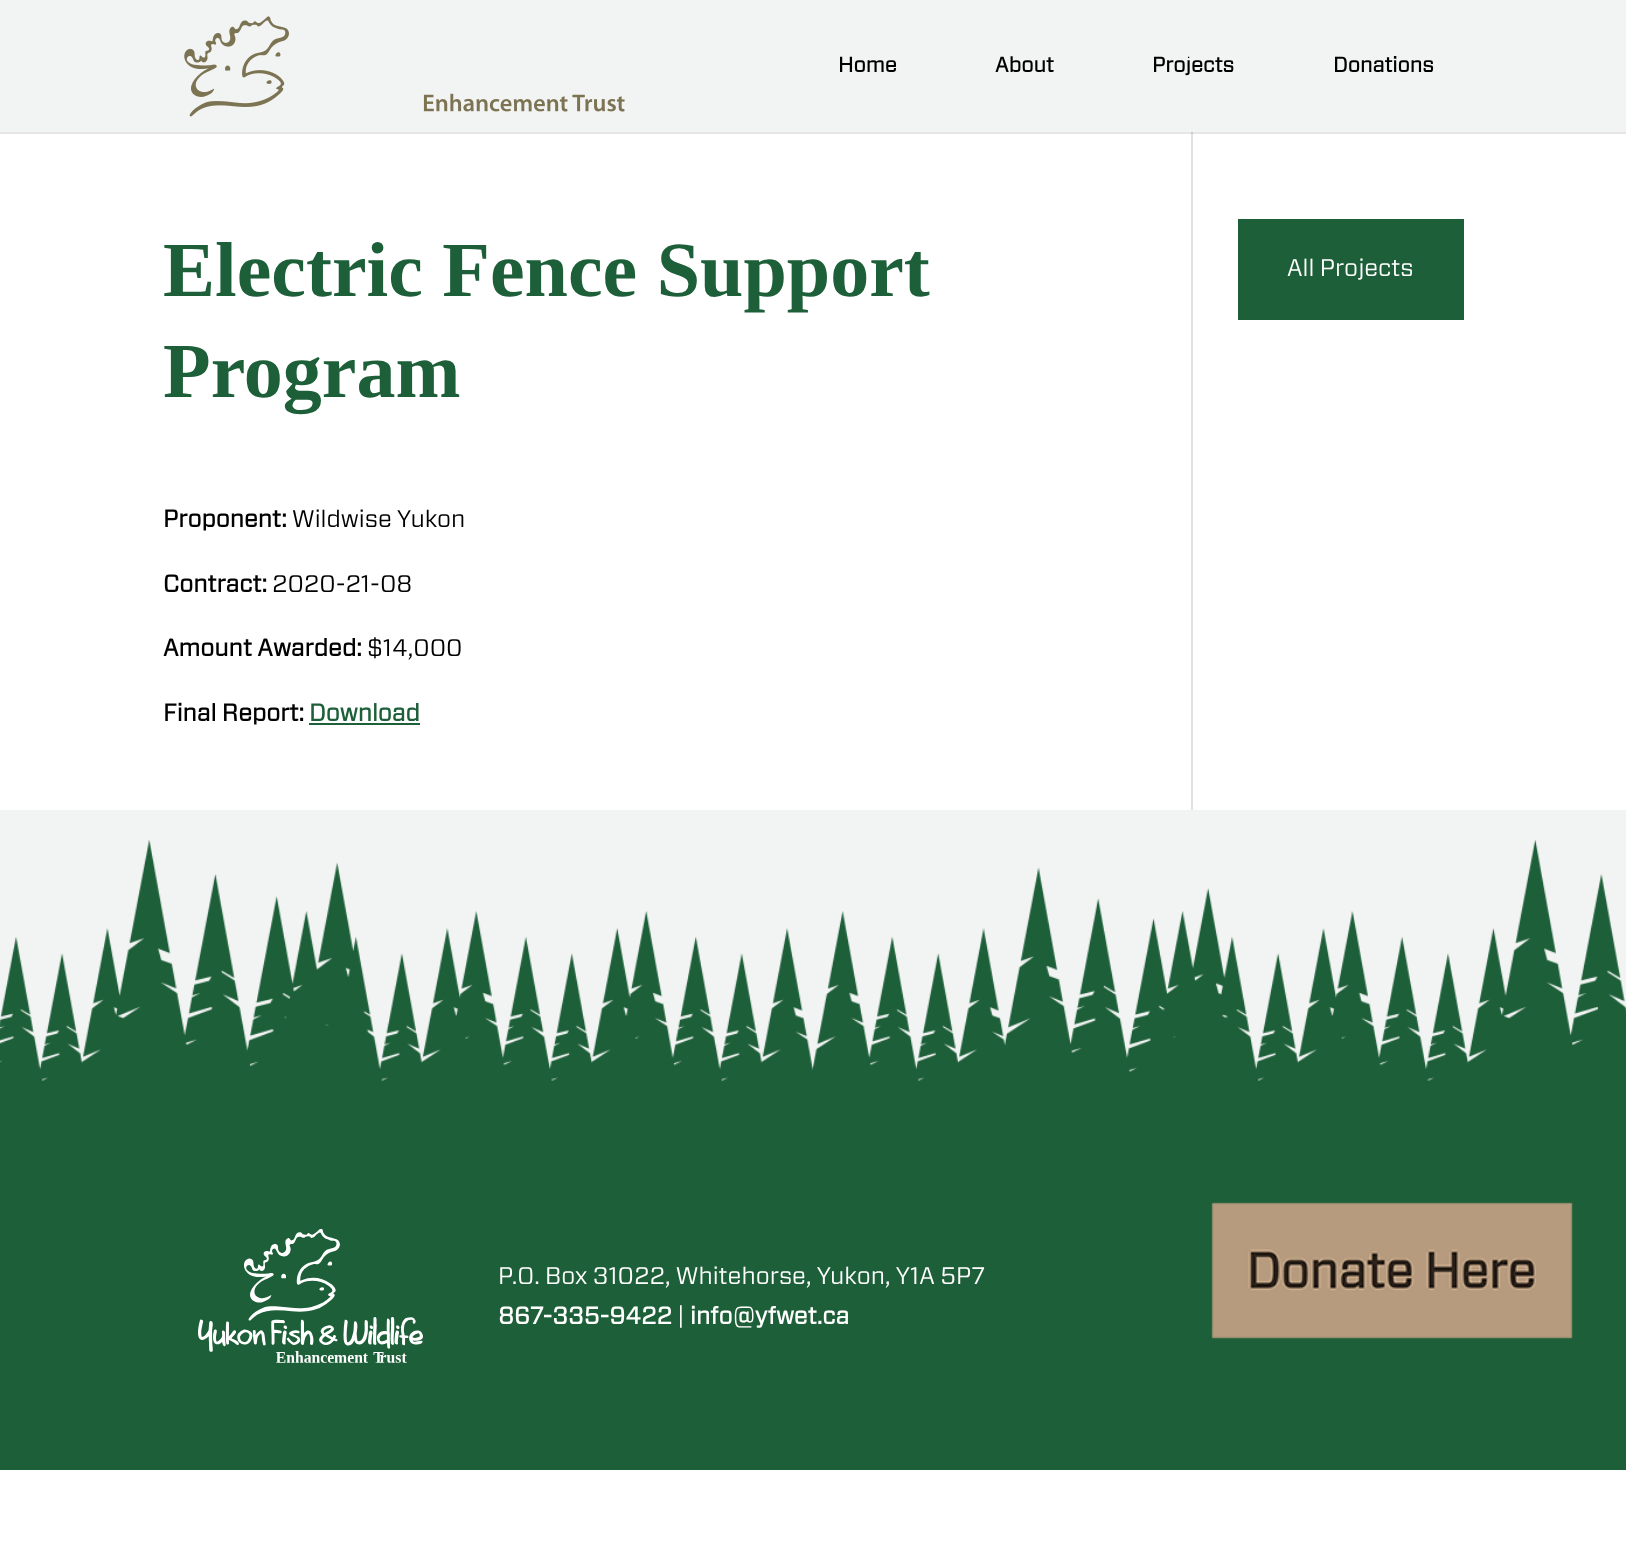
<?xml version="1.0" encoding="UTF-8"?>
<svg xmlns="http://www.w3.org/2000/svg" xmlns:xlink="http://www.w3.org/1999/xlink" width="1626" height="1562">
  <rect width="100%" height="100%" fill="#ffffff" />
  <rect y="132" width="1626" height="2" fill="#e6e6e6" />
  <rect width="1626" height="132" fill="#f2f3f3" />
  <image x="184" y="16" width="441" height="101" xlink:href="image1.png" />
  <rect x="1191" y="132" width="2" height="678" fill="#e2e2e2" />
  <rect x="1191" y="132" width="2" height="2" fill="#cbcbcb" />
  <rect x="309" y="723" width="111" height="2" fill="#1c5f38" />
  <rect x="1238" y="219" width="226" height="101" fill="#1c5f38" />
  <rect y="810" width="1626" height="271" fill="#f2f3f3" />
  <image x="0" y="840" width="1626" height="285" xlink:href="image2.png" />
  <rect y="1125" width="1626" height="345" fill="#1d5f38" />
  <image x="198" y="1229" width="225" height="134" xlink:href="image3.png" />
  <image x="1211" y="1202" width="362" height="137" xlink:href="image4.png" />
  <text x="838" y="72" style="font-family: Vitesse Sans; font-size: 21px; font-weight: bold; fill: #000000">Home</text>
  <text x="995" y="72" style="font-family: Vitesse Sans; font-size: 21px; font-weight: bold; fill: #000000">About</text>
  <text x="1152" y="72" style="font-family: Vitesse Sans; font-size: 21px; font-weight: bold; fill: #000000">Projects</text>
  <text x="1333" y="72" style="font-family: Vitesse Sans; font-size: 21px; font-weight: bold; fill: #000000">Donations</text>
  <text x="163" y="296" style="font-family: Liberation Serif; font-size: 78px; font-weight: bold; fill: #1c5f38">Electric Fence Support</text>
  <text x="163" y="397" style="font-family: Liberation Serif; font-size: 78px; font-weight: bold; fill: #1c5f38">Program</text>
  <text x="163" y="527" style="font-family: Vitesse Sans; font-size: 24px; font-weight: bold; fill: #000000">Proponent:</text>
  <text x="292" y="527" style="font-family: Vitesse Sans; font-size: 24px; fill: #000000">Wildwise Yukon</text>
  <text x="163" y="592" style="font-family: Vitesse Sans; font-size: 24px; font-weight: bold; fill: #000000">Contract:</text>
  <text x="272" y="592" style="font-family: Vitesse Sans; font-size: 24px; fill: #000000">2020-21-08</text>
  <text x="163" y="656" style="font-family: Vitesse Sans; font-size: 24px; font-weight: bold; fill: #000000">Amount Awarded:</text>
  <text x="367" y="656" style="font-family: Vitesse Sans; font-size: 24px; fill: #000000">$14,000</text>
  <text x="163" y="721" style="font-family: Vitesse Sans; font-size: 24px; font-weight: bold; fill: #000000">Final Report:</text>
  <text x="309" y="721" style="font-family: Vitesse Sans; font-size: 24px; font-weight: bold; fill: #1c5f38">Download</text>
  <text x="1287" y="276" style="font-family: Vitesse Sans; font-size: 24px; fill: #ffffff">All Projects</text>
  <text x="498" y="1284" style="font-family: Vitesse Sans; font-size: 24px; fill: #ffffff">P.O. Box 31022, Whitehorse, Yukon, Y1A 5P7</text>
  <text x="498" y="1324" style="font-family: Vitesse Sans; font-size: 24px; font-weight: bold; fill: #ffffff">867-335-9422</text>
  <text x="677" y="1324" style="font-family: Vitesse Sans; font-size: 24px; fill: #ffffff">|</text>
  <text x="690" y="1324" style="font-family: Vitesse Sans; font-size: 24px; font-weight: bold; fill: #ffffff">info@yfwet.ca</text>
</svg>
